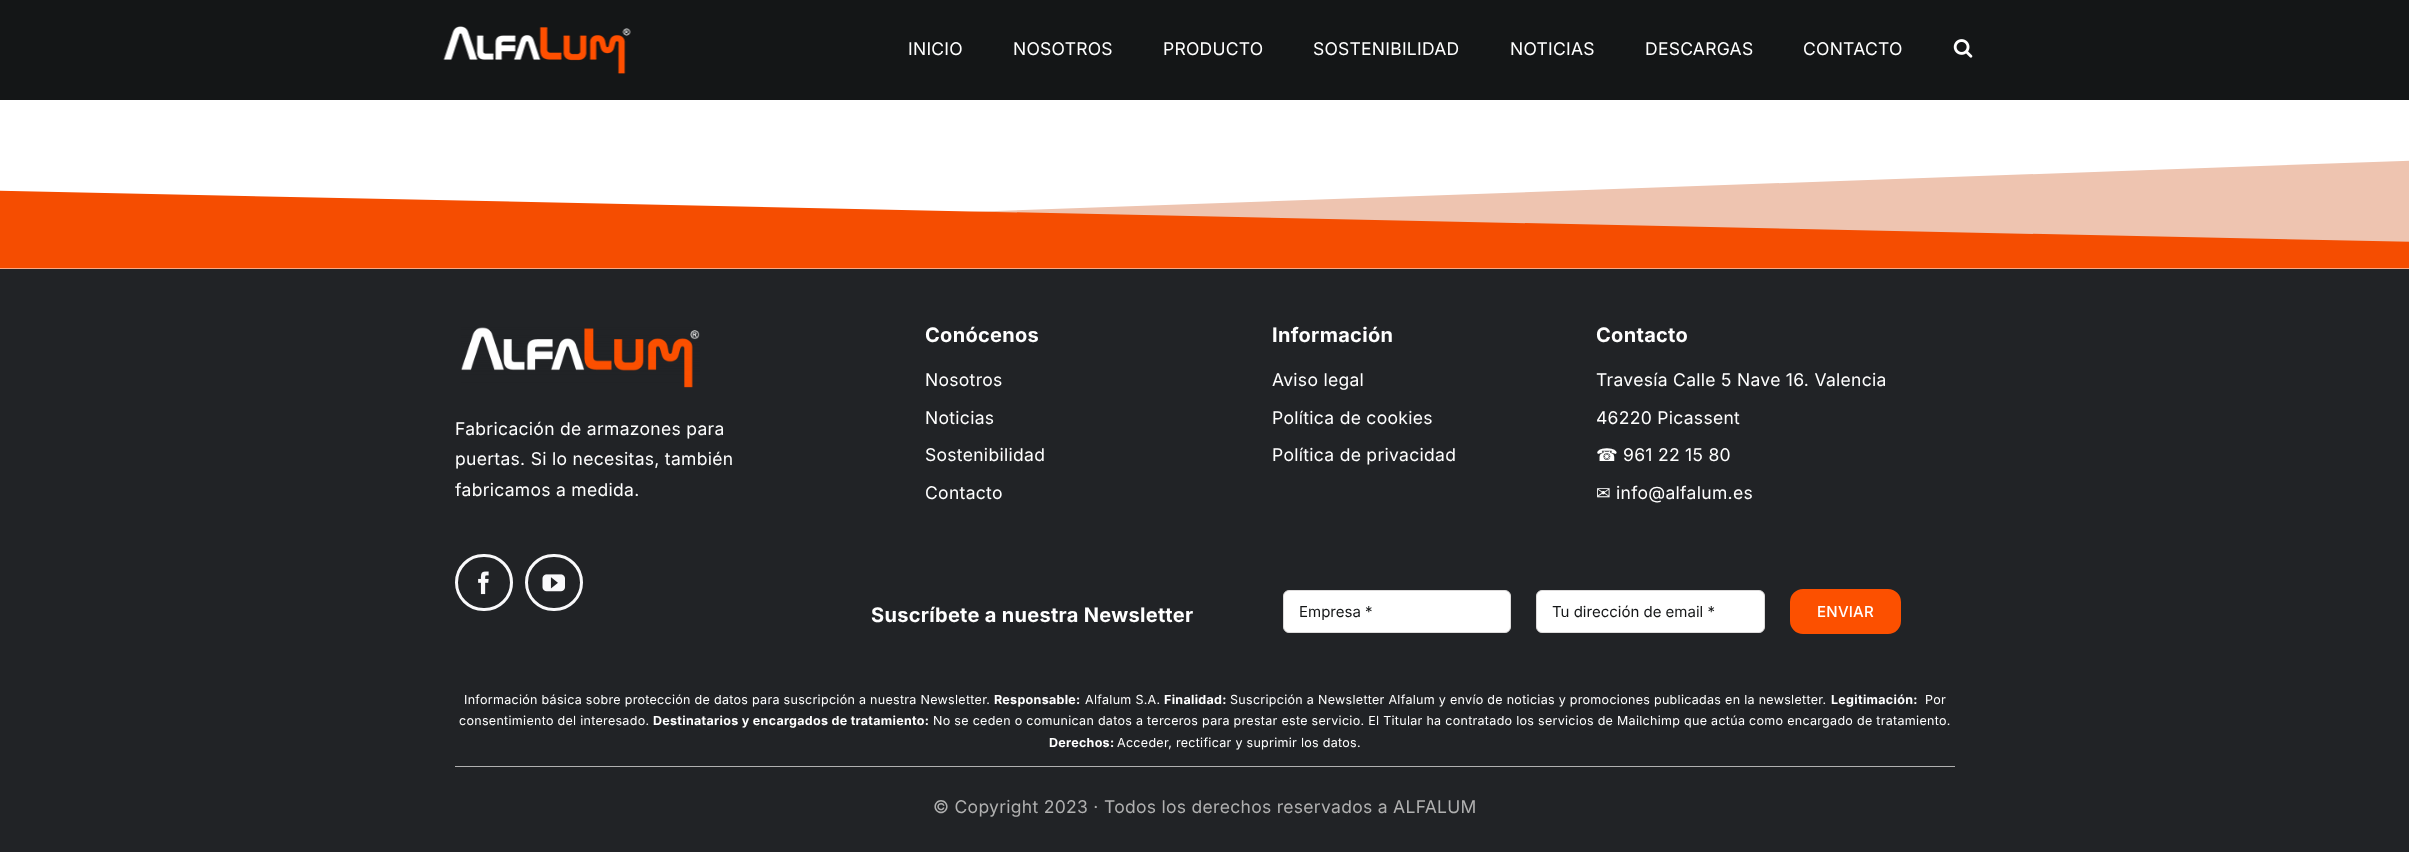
<?xml version="1.0" encoding="UTF-8"?>
<svg xmlns="http://www.w3.org/2000/svg" xmlns:xlink="http://www.w3.org/1999/xlink" width="2409" height="852">
  <rect width="100%" height="100%" fill="#ffffff" />
  <rect width="2409" height="100" fill="#141617" />
  <image x="443" y="26" width="188" height="48" xlink:href="image1.png" />
  <image x="1953" y="39" width="20" height="19" xlink:href="image2.png" />
  <image x="0" y="160" width="2409" height="109" xlink:href="image3.png" />
  <rect y="269" width="2409" height="583" fill="#212326" />
  <image x="461" y="327" width="239" height="61" xlink:href="image4.png" />
  <rect x="456.5" y="555.5" width="55" height="54" rx="27" fill="none" stroke="#f9f9fb" stroke-width="3" />
  <image x="478" y="571" width="11" height="24" xlink:href="image5.png" />
  <rect x="526.5" y="555.5" width="55" height="54" rx="27" fill="none" stroke="#f9f9fb" stroke-width="3" />
  <image x="542" y="574" width="23" height="18" xlink:href="image6.png" />
  <rect x="1283.5" y="590.5" width="227" height="42" rx="5.5" fill="#ffffff" stroke="#dddbdb" />
  <rect x="1536.5" y="590.5" width="228" height="42" rx="5.5" fill="#ffffff" stroke="#dddbdb" />
  <rect x="1791.5" y="590.5" width="108" height="42" rx="11.5" fill="#fc5000" stroke="#fc5000" stroke-width="3" />
  <rect x="455" y="766" width="1500" height="1" fill="#b0b0b0" />
  <text x="908" y="55" style="font-family: Inter; font-size: 17.5px; letter-spacing: 0.25px; fill: #ffffff">INICIO</text>
  <text x="1013" y="55" style="font-family: Inter; font-size: 17.5px; letter-spacing: 0.25px; fill: #ffffff">NOSOTROS</text>
  <text x="1163" y="55" style="font-family: Inter; font-size: 17.5px; letter-spacing: 0.25px; fill: #ffffff">PRODUCTO</text>
  <text x="1313" y="55" style="font-family: Inter; font-size: 17.5px; letter-spacing: 0.25px; fill: #ffffff">SOSTENIBILIDAD</text>
  <text x="1510" y="55" style="font-family: Inter; font-size: 17.5px; letter-spacing: 0.25px; fill: #ffffff">NOTICIAS</text>
  <text x="1645" y="55" style="font-family: Inter; font-size: 17.5px; letter-spacing: 0.25px; fill: #ffffff">DESCARGAS</text>
  <text x="1803" y="55" style="font-family: Inter; font-size: 17.5px; letter-spacing: 0.25px; fill: #ffffff">CONTACTO</text>
  <text x="455" y="435" style="font-family: Inter; font-size: 17.5px; letter-spacing: 0.3px; fill: #ffffff">Fabricación de armazones para</text>
  <text x="455" y="465" style="font-family: Inter; font-size: 17.5px; letter-spacing: 0.3px; fill: #ffffff">puertas. Si lo necesitas, también</text>
  <text x="455" y="496" style="font-family: Inter; font-size: 17.5px; letter-spacing: 0.3px; fill: #ffffff">fabricamos a medida.</text>
  <text x="925" y="342" style="font-family: Inter; font-size: 20px; font-weight: bold; letter-spacing: 0.3px; fill: #ffffff">Conócenos</text>
  <text x="925" y="386" style="font-family: Inter; font-size: 17.5px; letter-spacing: 0.3px; fill: #ffffff">Nosotros</text>
  <text x="925" y="424" style="font-family: Inter; font-size: 17.5px; letter-spacing: 0.3px; fill: #ffffff">Noticias</text>
  <text x="925" y="461" style="font-family: Inter; font-size: 17.5px; letter-spacing: 0.3px; fill: #ffffff">Sostenibilidad</text>
  <text x="925" y="499" style="font-family: Inter; font-size: 17.5px; letter-spacing: 0.3px; fill: #ffffff">Contacto</text>
  <text x="1272" y="342" style="font-family: Inter; font-size: 20px; font-weight: bold; letter-spacing: 0.3px; fill: #ffffff">Información</text>
  <text x="1272" y="386" style="font-family: Inter; font-size: 17.5px; letter-spacing: 0.3px; fill: #ffffff">Aviso legal</text>
  <text x="1272" y="424" style="font-family: Inter; font-size: 17.5px; letter-spacing: 0.3px; fill: #ffffff">Política de cookies</text>
  <text x="1272" y="461" style="font-family: Inter; font-size: 17.5px; letter-spacing: 0.3px; fill: #ffffff">Política de privacidad</text>
  <text x="1596" y="342" style="font-family: Inter; font-size: 20px; font-weight: bold; letter-spacing: 0.3px; fill: #ffffff">Contacto</text>
  <text x="1596" y="386" style="font-family: Inter; font-size: 17.5px; letter-spacing: 0.3px; fill: #ffffff">Travesía Calle 5 Nave 16. Valencia</text>
  <text x="1596" y="424" style="font-family: Inter; font-size: 17.5px; letter-spacing: 0.3px; fill: #ffffff">46220 Picassent</text>
  <text x="1596" y="461" style="font-family: DejaVu Sans; font-size: 17.5px; letter-spacing: 0.3px; fill: #ffffff">☎</text>
  <text x="1623" y="461" style="font-family: Inter; font-size: 17.5px; letter-spacing: 0.3px; fill: #ffffff">961 22 15 80</text>
  <text x="1596" y="499" style="font-family: DejaVu Sans; font-size: 17.5px; letter-spacing: 0.3px; fill: #ffffff">✉</text>
  <text x="1616" y="499" style="font-family: Inter; font-size: 17.5px; letter-spacing: 0.3px; fill: #ffffff">info@alfalum.es</text>
  <text x="871" y="622" style="font-family: Inter; font-size: 20px; font-weight: bold; letter-spacing: 0.3px; fill: #ffffff">Suscríbete a nuestra Newsletter</text>
  <text x="1299" y="617" style="font-family: Inter; font-size: 15px; fill: #141617">Empresa *</text>
  <text x="1552" y="617" style="font-family: Inter; font-size: 15px; fill: #141617">Tu dirección de email *</text>
  <text x="1817" y="617" style="font-family: Inter; font-size: 15px; font-weight: 500; letter-spacing: 0.25px; fill: #ffffff">ENVIAR</text>
  <text x="464" y="704" style="font-family: Inter; font-size: 12.5px; letter-spacing: 0.3px; fill: #ffffff">Información básica sobre protección de datos para suscripción a nuestra Newsletter.</text>
  <text x="994" y="704" style="font-family: Inter; font-size: 12.5px; font-weight: bold; letter-spacing: 0.3px; fill: #ffffff">Responsable:</text>
  <text x="1085" y="704" style="font-family: Inter; font-size: 12.5px; letter-spacing: 0.3px; fill: #ffffff">Alfalum S.A.</text>
  <text x="1164" y="704" style="font-family: Inter; font-size: 12.5px; font-weight: bold; letter-spacing: 0.3px; fill: #ffffff">Finalidad:</text>
  <text x="1230" y="704" style="font-family: Inter; font-size: 12.5px; letter-spacing: 0.3px; fill: #ffffff">Suscripción a Newsletter Alfalum y envío de noticias y promociones publicadas en la newsletter.</text>
  <text x="1831" y="704" style="font-family: Inter; font-size: 12.5px; font-weight: bold; letter-spacing: 0.3px; fill: #ffffff">Legitimación:</text>
  <text x="1925" y="704" style="font-family: Inter; font-size: 12.5px; letter-spacing: 0.3px; fill: #ffffff">Por</text>
  <text x="459" y="725" style="font-family: Inter; font-size: 12.5px; letter-spacing: 0.3px; fill: #ffffff">consentimiento del interesado.</text>
  <text x="653" y="725" style="font-family: Inter; font-size: 12.5px; font-weight: bold; letter-spacing: 0.3px; fill: #ffffff">Destinatarios y encargados de tratamiento:</text>
  <text x="933" y="725" style="font-family: Inter; font-size: 12.5px; letter-spacing: 0.3px; fill: #ffffff">No se ceden o comunican datos a terceros para prestar este servicio. El Titular ha contratado los servicios de Mailchimp que actúa como encargado de tratamiento.</text>
  <text x="1049" y="747" style="font-family: Inter; font-size: 12.5px; font-weight: bold; letter-spacing: 0.3px; fill: #ffffff">Derechos:</text>
  <text x="1117" y="747" style="font-family: Inter; font-size: 12.5px; letter-spacing: 0.3px; fill: #ffffff">Acceder, rectificar y suprimir los datos.</text>
  <text x="933" y="813" style="font-family: Inter; font-size: 17.5px; letter-spacing: 0.3px; fill: #b0b0b0">© Copyright 2023 · Todos los derechos reservados a ALFALUM</text>
</svg>
